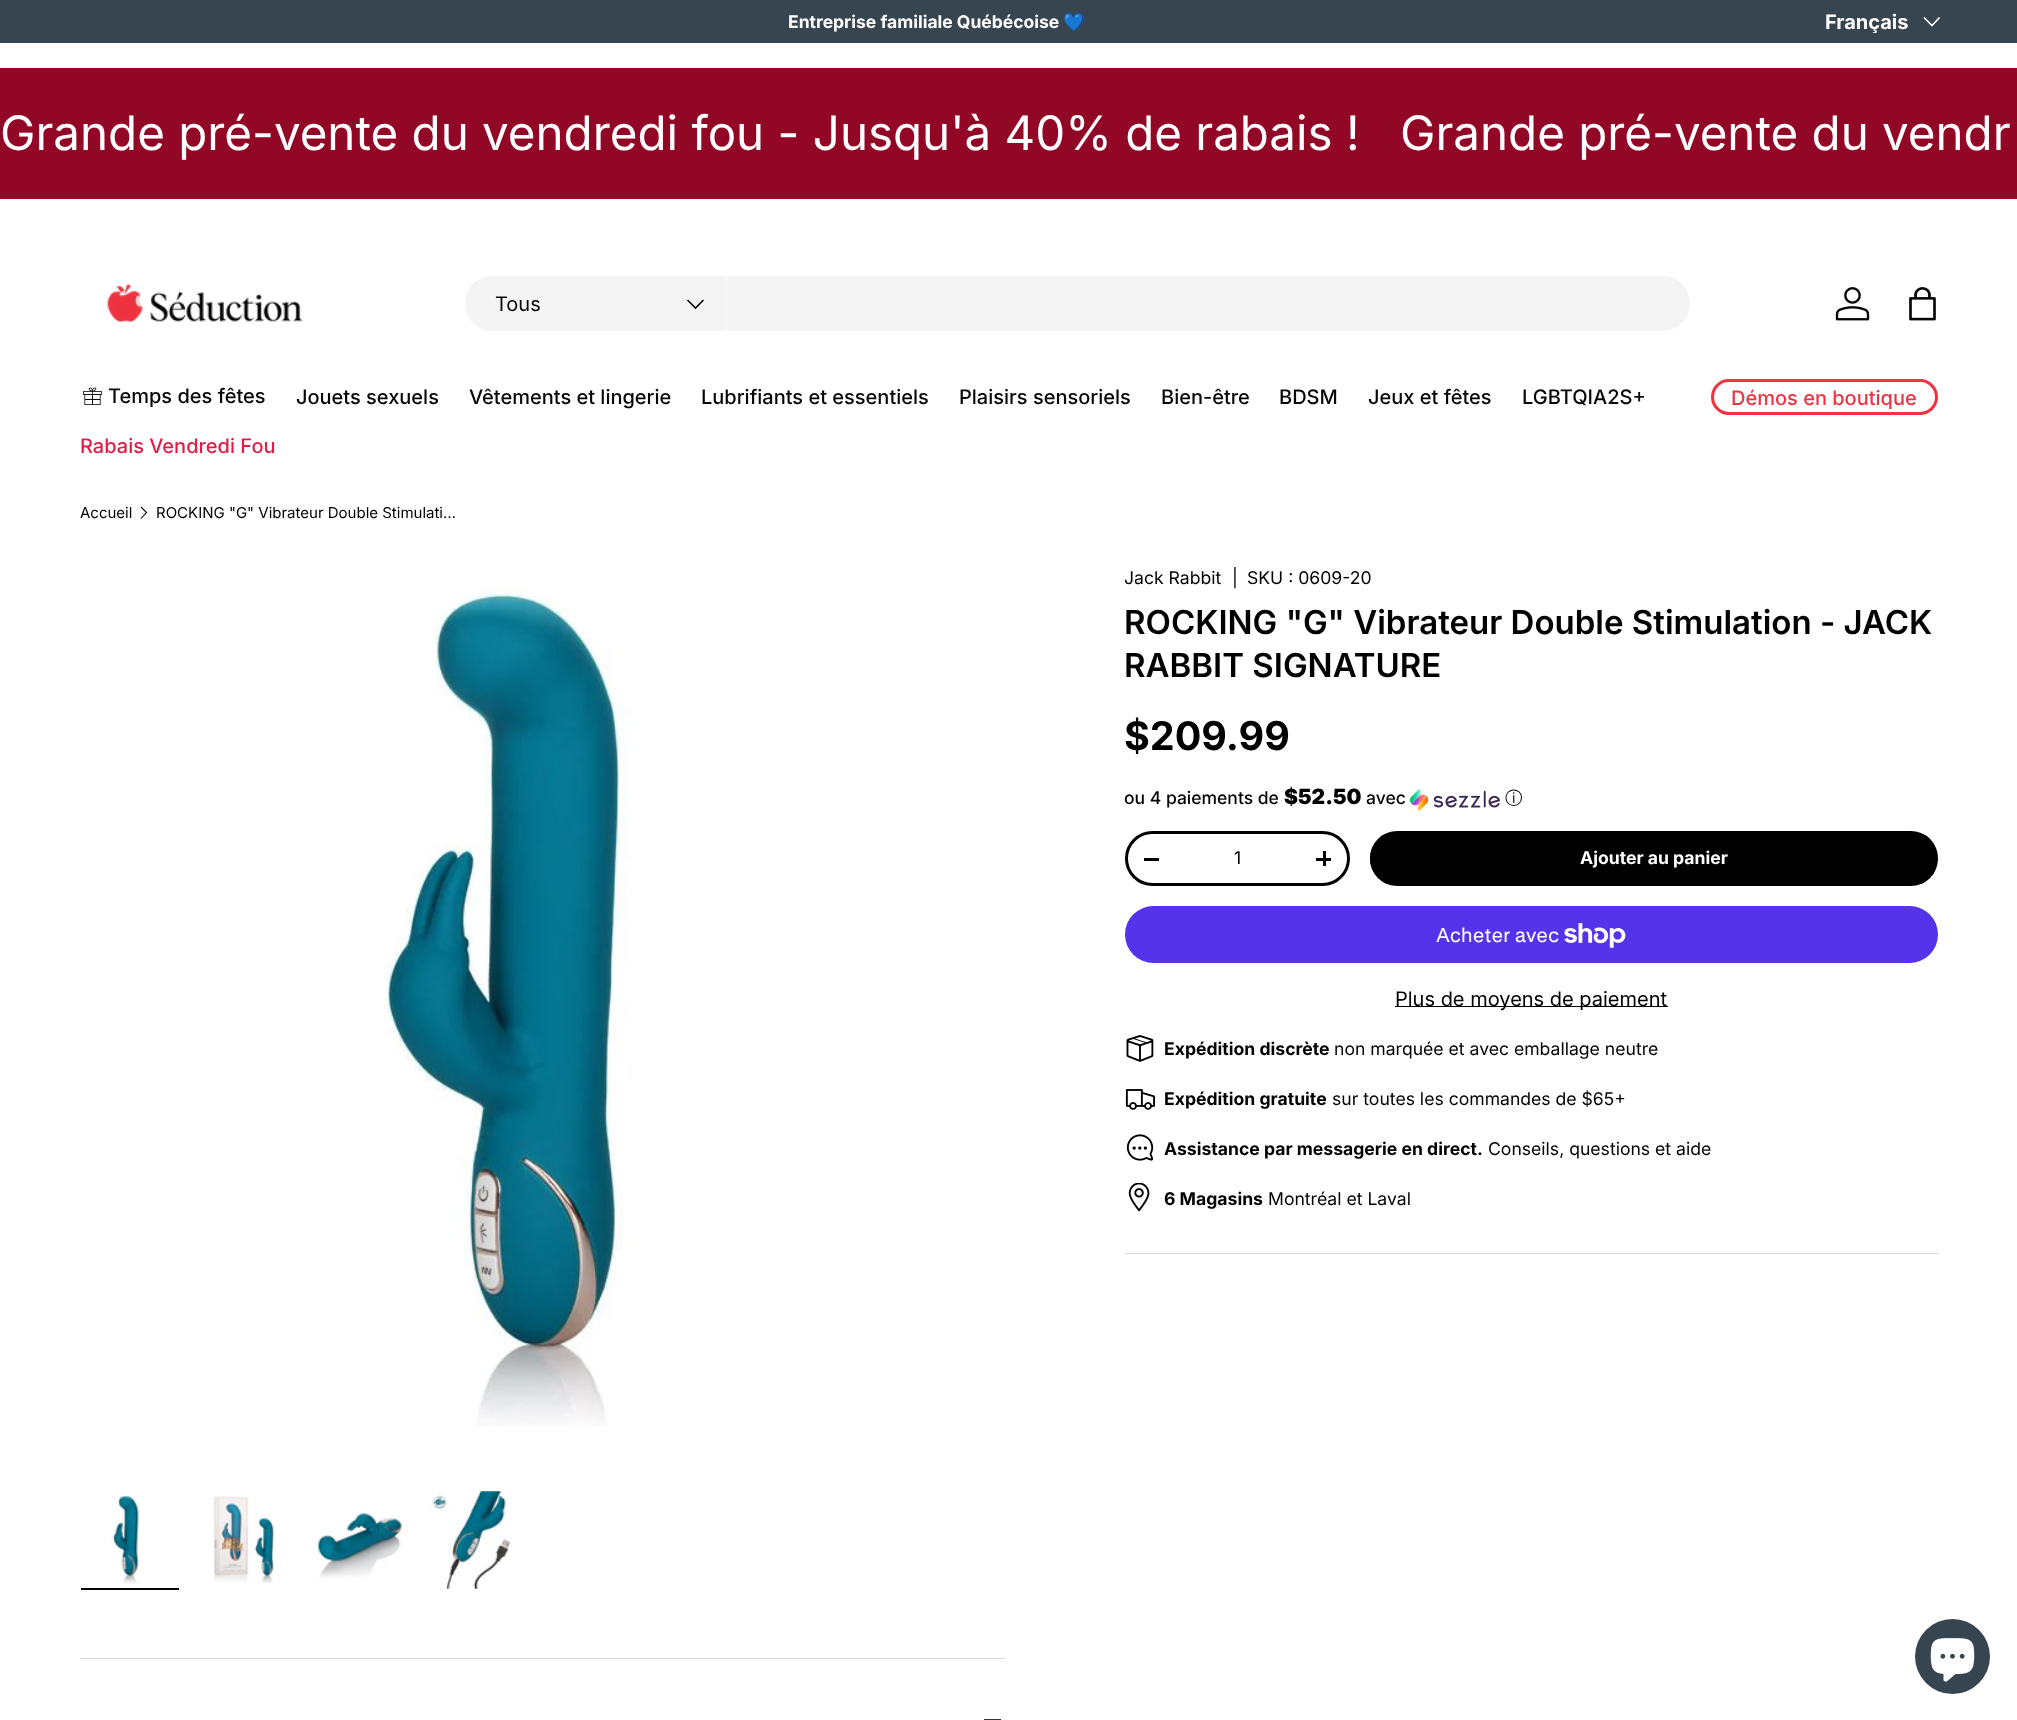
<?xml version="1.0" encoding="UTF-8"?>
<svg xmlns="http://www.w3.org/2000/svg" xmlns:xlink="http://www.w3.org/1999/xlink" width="2017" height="1720">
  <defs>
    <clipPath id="clip1"><rect x="1370" y="831" width="568" height="55" rx="27.5" /></clipPath>
    <linearGradient id="g1" gradientUnits="userSpaceOnUse" x1="291" y1="659" x2="1891" y2="1058"><stop offset="0.6" stop-color="#2e2e2e" /><stop offset="0.6" stop-color="#000000" /><stop offset="1" stop-color="#000000" /></linearGradient>
  </defs>
  <rect width="100%" height="100%" fill="#ffffff" />
  <rect width="2017" height="43" fill="#36454f" />
  <path d="M 1939.5 17.5 l -7.5 8 l -8 -8" fill="none" stroke="#ffffff" stroke-width="1.6" />
  <rect y="68" width="2017" height="131" fill="#920726" />
  <image x="107" y="283" width="196" height="40" xlink:href="image1.png" />
  <rect x="465" y="276" width="1225" height="55" rx="27.5" fill="#f4f4f4" />
  <path d="M 492.5 276 h 235.5 v 55 h -235.5 c -15 0 -27.5 -12.5 -27.5 -27.5 c 0 -15 12.5 -27.5 27.5 -27.5 z" fill="#f4f4f4" />
  <rect x="726" y="276" width="1" height="55" fill="#ffffff" />
  <path d="M 703.5 300 l -8 8 l -8 -8" fill="none" stroke="#070707" stroke-width="1.6" />
  <image x="1835" y="287" width="35" height="34" xlink:href="image2.png" />
  <image x="1909" y="287" width="27" height="34" xlink:href="image3.png" />
  <image x="83" y="387" width="19" height="18" xlink:href="image4.png" />
  <rect x="1712.5" y="380.5" width="224" height="33" rx="16.5" fill="none" stroke="#ef3340" stroke-width="3" />
  <path d="M 141 507 l 5.5 5.5 l -5.5 6" fill="none" stroke="#000000" stroke-width="1.1" />
  <image x="386" y="588" width="246" height="839" xlink:href="image5.png" />
  <image x="110" y="1493" width="30" height="91" xlink:href="image6.png" />
  <rect x="81" y="1588" width="98" height="2" fill="#000000" />
  <image x="213" y="1496" width="62" height="88" xlink:href="image7.png" />
  <image x="314" y="1511" width="95" height="68" xlink:href="image8.png" />
  <image x="426" y="1491" width="85" height="98" xlink:href="image9.png" />
  <image x="1410" y="789" width="90" height="22" xlink:href="image10.png" />
  <rect x="1126.5" y="832.5" width="222" height="52" rx="26" fill="none" stroke="#000000" stroke-width="3" />
  <rect x="1144" y="858" width="15" height="3" fill="#000000" />
  <rect x="1316" y="858" width="15" height="3" fill="#000000" />
  <rect x="1323" y="851" width="3" height="15" fill="#000000" />
  <g clip-path="url(#clip1)">
    <rect x="1370" y="834" width="565" height="50" fill="url(#g1)" />
  </g>
  <rect x="1371.5" y="832.5" width="565" height="52" rx="26" fill="none" stroke="#000000" stroke-width="3" />
  <rect x="1125" y="906" width="813" height="57" rx="28.5" fill="#5433eb" />
  <image x="1564" y="923" width="62" height="25" xlink:href="image11.png" />
  <rect x="1395" y="1006" width="273" height="1" fill="#000000" />
  <image x="1126" y="1035" width="28" height="27" xlink:href="image12.png" />
  <image x="1125" y="1089" width="30" height="21" xlink:href="image13.png" />
  <image x="1126" y="1134" width="28" height="27" xlink:href="image14.png" />
  <image x="1128" y="1183" width="22" height="29" xlink:href="image15.png" />
  <rect x="1125" y="1253" width="813" height="1" fill="#d9d9d9" />
  <rect x="80" y="1658" width="925" height="1" fill="#d9d9d9" />
  <rect x="984" y="1719" width="17" height="1" fill="#333333" />
  <circle cx="1952.5" cy="1656.5" r="37.5" fill="#36454f" />
  <image x="1930" y="1638" width="45" height="44" xlink:href="image16.png" />
  <text x="788" y="28" style="font-family: Inter; font-size: 17.5px; font-weight: bold; fill: #ffffff">Entreprise familiale Québécoise</text>
  <text x="1063" y="28" style="font-family: Noto Color Emoji; font-size: 17.5px; font-weight: bold; fill: #ffffff">💙</text>
  <text x="1825" y="29" style="font-family: Inter; font-size: 20px; font-weight: bold; fill: #ffffff">Français</text>
  <text x="0" y="150" style="font-family: Inter; font-size: 47.5px; fill: #ffffff">Grande pré-vente du vendredi fou - Jusqu'à 40% de rabais !</text>
  <text x="1400" y="150" style="font-family: Inter; font-size: 47.5px; fill: #ffffff">Grande pré-vente du vendr</text>
  <text x="495" y="311" style="font-family: Inter; font-size: 20px; fill: #070707">Tous</text>
  <text x="108" y="403" style="font-family: Inter; font-size: 20px; font-weight: 500; fill: #070707">Temps des fêtes</text>
  <text x="296" y="404" style="font-family: Inter; font-size: 20px; font-weight: 500; fill: #070707">Jouets sexuels</text>
  <text x="469" y="404" style="font-family: Inter; font-size: 20px; font-weight: 500; fill: #070707">Vêtements et lingerie</text>
  <text x="701" y="404" style="font-family: Inter; font-size: 20px; font-weight: 500; fill: #070707">Lubrifiants et essentiels</text>
  <text x="959" y="404" style="font-family: Inter; font-size: 20px; font-weight: 500; fill: #070707">Plaisirs sensoriels</text>
  <text x="1161" y="404" style="font-family: Inter; font-size: 20px; font-weight: 500; fill: #070707">Bien-être</text>
  <text x="1279" y="404" style="font-family: Inter; font-size: 20px; font-weight: 500; fill: #070707">BDSM</text>
  <text x="1368" y="404" style="font-family: Inter; font-size: 20px; font-weight: 500; fill: #070707">Jeux et fêtes</text>
  <text x="1522" y="404" style="font-family: Inter; font-size: 20px; font-weight: 500; fill: #070707">LGBTQIA2S+</text>
  <text x="80" y="453" style="font-family: Inter; font-size: 20px; font-weight: 500; fill: #e11d48">Rabais Vendredi Fou</text>
  <text x="1731" y="405" style="font-family: Inter; font-size: 20px; font-weight: 500; fill: #ef3340">Démos en boutique</text>
  <text x="80" y="518" style="font-family: Inter; font-size: 15px; fill: #000000">Accueil</text>
  <text x="156" y="518" style="font-family: Inter; font-size: 15px; fill: #000000">ROCKING "G" Vibrateur Double Stimulati…</text>
  <text x="1124" y="584" style="font-family: Inter; font-size: 17.6px; fill: #000000">Jack Rabbit</text>
  <text x="1232" y="584" style="font-family: Inter; font-size: 17.6px; fill: #000000">|</text>
  <text x="1247" y="584" style="font-family: Inter; font-size: 17.6px; fill: #000000">SKU : 0609-20</text>
  <text x="1124" y="634" style="font-family: Inter; font-size: 33px; font-weight: 600; fill: #000000">ROCKING "G" Vibrateur Double Stimulation - JACK</text>
  <text x="1124" y="677" style="font-family: Inter; font-size: 33px; font-weight: 600; fill: #000000">RABBIT SIGNATURE</text>
  <text x="1124" y="750" style="font-family: Inter; font-size: 39.5px; font-weight: bold; fill: #000000">$209.99</text>
  <text x="1124" y="804" style="font-family: Inter; font-size: 17.5px; font-weight: 500; fill: #000000">ou 4 paiements de</text>
  <text x="1284" y="804" style="font-family: Inter; font-size: 21px; font-weight: 900; fill: #000000">$52.50</text>
  <text x="1366" y="804" style="font-family: Inter; font-size: 17.5px; font-weight: 500; fill: #000000">avec</text>
  <text x="1505" y="804" style="font-family: WenQuanYi Zen Hei; font-size: 17.5px; font-weight: 500; fill: #000000">ⓘ</text>
  <text x="1234" y="864" style="font-family: Inter; font-size: 17.6px; fill: #000000">1</text>
  <text x="1580" y="864" style="font-family: Inter; font-size: 17.6px; font-weight: bold; fill: #ffffff">Ajouter au panier</text>
  <text x="1436" y="942" style="font-family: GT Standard; font-size: 20px; fill: #ffffff">Acheter avec</text>
  <text x="1395" y="1006" style="font-family: Inter; font-size: 20px; fill: #000000">Plus de moyens de paiement</text>
  <text x="1164" y="1055" style="font-family: Inter; font-size: 17.6px; font-weight: bold; fill: #000000">Expédition discrète</text>
  <text x="1334" y="1055" style="font-family: Inter; font-size: 17.6px; fill: #000000">non marquée et avec emballage neutre</text>
  <text x="1164" y="1105" style="font-family: Inter; font-size: 17.6px; font-weight: bold; fill: #000000">Expédition gratuite</text>
  <text x="1332" y="1105" style="font-family: Inter; font-size: 17.6px; fill: #000000">sur toutes les commandes de $65+</text>
  <text x="1164" y="1155" style="font-family: Inter; font-size: 17.6px; font-weight: bold; fill: #000000">Assistance par messagerie en direct.</text>
  <text x="1488" y="1155" style="font-family: Inter; font-size: 17.6px; fill: #000000">Conseils, questions et aide</text>
  <text x="1164" y="1205" style="font-family: Inter; font-size: 17.6px; font-weight: bold; fill: #000000">6 Magasins</text>
  <text x="1268" y="1205" style="font-family: Inter; font-size: 17.6px; fill: #000000">Montréal et Laval</text>
</svg>
